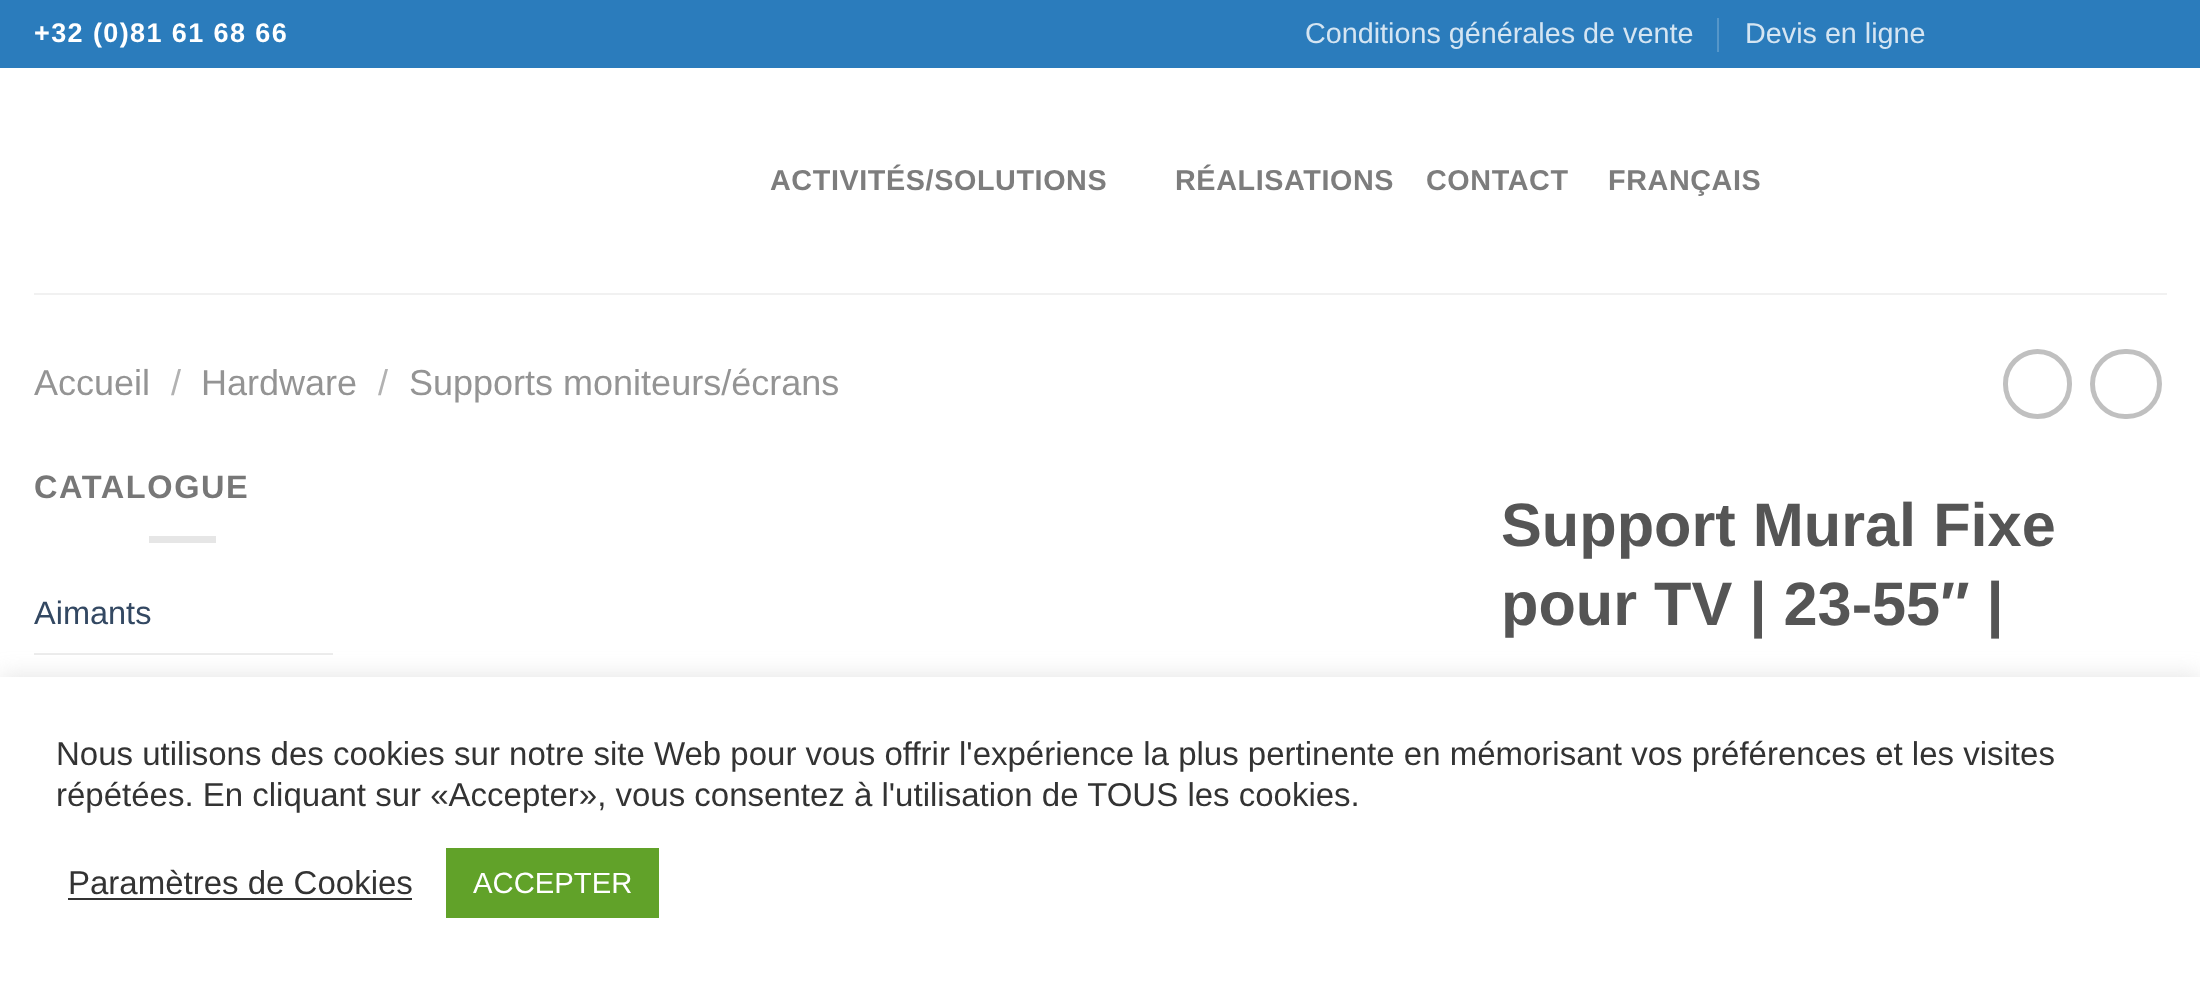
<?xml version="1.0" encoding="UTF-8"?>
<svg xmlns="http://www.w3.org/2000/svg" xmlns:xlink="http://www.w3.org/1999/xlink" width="2200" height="985">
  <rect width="100%" height="100%" fill="#ffffff" />
  <rect width="2200" height="68" fill="#2b7cbc" />
  <rect x="1717" y="18" width="2" height="34" fill="#5596c9" />
  <rect x="34" y="293" width="2133" height="2" fill="#f1f1f1" />
  <rect x="2005.5" y="351.5" width="64" height="65" rx="32" fill="none" stroke="#c0c0c0" stroke-width="5" />
  <rect x="2092.5" y="351.5" width="67" height="65" rx="32.5" fill="none" stroke="#c0c0c0" stroke-width="5" />
  <rect x="149" y="536" width="67" height="7" fill="#e6e6e6" />
  <rect x="34" y="653" width="299" height="2" fill="#ececec" />
  <rect y="675" width="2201" height="308" fill="#acabab" fill-opacity="0.3" filter="blur(11px)" />
  <rect y="677" width="2200" height="308" fill="#ffffff" />
  <rect x="68" y="898" width="344" height="2" fill="#333333" />
  <rect x="446" y="848" width="213" height="70" fill="#61a229" />
  <text x="34" y="42" style="font-family: Liberation Sans; font-size: 27px; font-weight: bold; letter-spacing: 1.4px; fill: #ffffff">+32 (0)81 61 68 66</text>
  <text x="1305" y="43" style="font-family: Liberation Sans; font-size: 28.75px; fill: #d5e5f2">Conditions générales de vente</text>
  <text x="1745" y="43" style="font-family: Liberation Sans; font-size: 28.75px; fill: #d5e5f2">Devis en ligne</text>
  <text x="770" y="190" style="font-family: Liberation Sans; font-size: 28.75px; font-weight: bold; letter-spacing: 0.6px; fill: #7d7d7d">ACTIVITÉS/SOLUTIONS</text>
  <text x="1175" y="190" style="font-family: Liberation Sans; font-size: 28.75px; font-weight: bold; letter-spacing: 0.6px; fill: #7d7d7d">RÉALISATIONS</text>
  <text x="1426" y="190" style="font-family: Liberation Sans; font-size: 28.75px; font-weight: bold; letter-spacing: 0.6px; fill: #7d7d7d">CONTACT</text>
  <text x="1608" y="190" style="font-family: Liberation Sans; font-size: 28.75px; font-weight: bold; letter-spacing: 0.6px; fill: #7d7d7d">FRANÇAIS</text>
  <text x="34" y="395" style="font-family: Liberation Sans; font-size: 36px; fill: #949494">Accueil</text>
  <text x="171" y="395" style="font-family: Liberation Sans; font-size: 36px; fill: #b2b2b2">/</text>
  <text x="201" y="395" style="font-family: Liberation Sans; font-size: 36px; fill: #949494">Hardware</text>
  <text x="378" y="395" style="font-family: Liberation Sans; font-size: 36px; fill: #b2b2b2">/</text>
  <text x="409" y="395" style="font-family: Liberation Sans; font-size: 36px; fill: #949494">Supports moniteurs/écrans</text>
  <text x="34" y="498" style="font-family: Liberation Sans; font-size: 32.5px; font-weight: bold; letter-spacing: 1.6px; fill: #777777">CATALOGUE</text>
  <text x="34" y="624" style="font-family: Liberation Sans; font-size: 32.5px; fill: #334862">Aimants</text>
  <text x="1501" y="546" style="font-family: Liberation Sans; font-size: 61.25px; font-weight: bold; fill: #555555">Support Mural Fixe</text>
  <text x="1501" y="625" style="font-family: Liberation Sans; font-size: 61.25px; font-weight: bold; fill: #555555">pour TV | 23-55″ |</text>
  <text x="56" y="765" style="font-family: Liberation Sans; font-size: 33px; fill: #333333">Nous utilisons des cookies sur notre site Web pour vous offrir l'expérience la plus pertinente en mémorisant vos préférences et les visites</text>
  <text x="56" y="806" style="font-family: Liberation Sans; font-size: 33px; fill: #333333">répétées. En cliquant sur «Accepter», vous consentez à l'utilisation de TOUS les cookies.</text>
  <text x="68" y="894" style="font-family: Liberation Sans; font-size: 33px; fill: #333333">Paramètres de Cookies</text>
  <text x="473" y="893" style="font-family: Liberation Sans; font-size: 29.25px; fill: #ffffff">ACCEPTER</text>
</svg>
